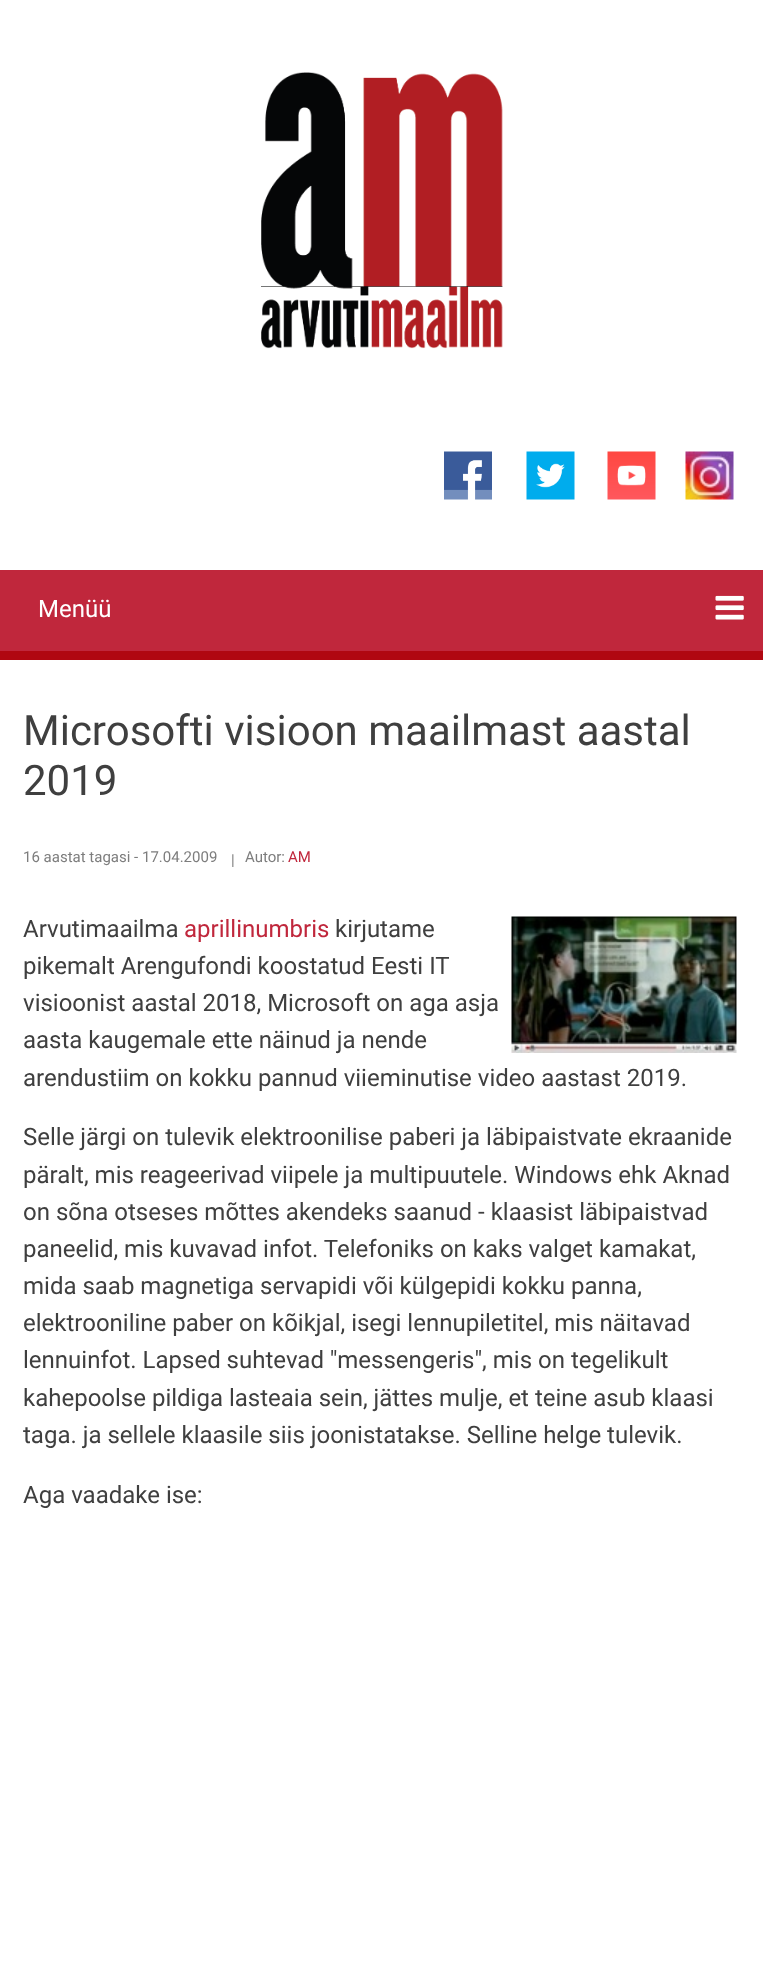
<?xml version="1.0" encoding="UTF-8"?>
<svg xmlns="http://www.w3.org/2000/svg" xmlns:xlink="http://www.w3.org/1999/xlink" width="763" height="1968">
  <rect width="100%" height="100%" fill="#ffffff" />
  <image x="261" y="72" width="242" height="277" xlink:href="image1.png" />
  <image x="444" y="451" width="48" height="49" xlink:href="image2.png" />
  <image x="526" y="451" width="49" height="49" xlink:href="image3.png" />
  <image x="607" y="451" width="49" height="49" xlink:href="image4.png" />
  <image x="685" y="451" width="49" height="49" xlink:href="image5.png" />
  <rect y="570" width="763" height="81" fill="#c0273c" />
  <rect y="651" width="763" height="9" fill="#b00711" />
  <image x="715" y="595" width="29" height="25" xlink:href="image6.png" />
  <image x="511" y="916" width="226" height="137" xlink:href="image7.png" />
  <text x="38" y="617" style="font-family: Roboto; font-size: 24px; fill: #ffffff">Menüü</text>
  <text x="23" y="745" style="font-family: Roboto; font-size: 42px; fill: #3f3f3f">Microsofti visioon maailmast aastal</text>
  <text x="23" y="795" style="font-family: Roboto; font-size: 42px; fill: #3f3f3f">2019</text>
  <text x="23" y="862" style="font-family: Roboto; font-size: 15px; fill: #7d7d7d">16 aastat tagasi - 17.04.2009</text>
  <text x="231" y="865" style="font-family: Roboto; font-size: 15px; fill: #7d7d7d">|</text>
  <text x="245" y="862" style="font-family: Roboto; font-size: 15px; fill: #7d7d7d">Autor:</text>
  <text x="288" y="862" style="font-family: Roboto; font-size: 15px; fill: #c0273c">AM</text>
  <text x="23" y="937" style="font-family: Roboto; font-size: 24px; fill: #3f3f3f">Arvutimaailma</text>
  <text x="184" y="937" style="font-family: Roboto; font-size: 24px; fill: #c0273c">aprillinumbris</text>
  <text x="335" y="937" style="font-family: Roboto; font-size: 24px; fill: #3f3f3f">kirjutame</text>
  <text x="23" y="974" style="font-family: Roboto; font-size: 24px; fill: #3f3f3f">pikemalt Arengufondi koostatud Eesti IT</text>
  <text x="23" y="1011" style="font-family: Roboto; font-size: 24px; fill: #3f3f3f">visioonist aastal 2018, Microsoft on aga asja</text>
  <text x="23" y="1048" style="font-family: Roboto; font-size: 24px; fill: #3f3f3f">aasta kaugemale ette näinud ja nende</text>
  <text x="23" y="1086" style="font-family: Roboto; font-size: 24px; fill: #3f3f3f">arendustiim on kokku pannud viieminutise video aastast 2019.</text>
  <text x="23" y="1145" style="font-family: Roboto; font-size: 24px; fill: #3f3f3f">Selle järgi on tulevik elektroonilise paberi ja läbipaistvate ekraanide</text>
  <text x="23" y="1183" style="font-family: Roboto; font-size: 24px; fill: #3f3f3f">päralt, mis reageerivad viipele ja multipuutele. Windows ehk Aknad</text>
  <text x="23" y="1220" style="font-family: Roboto; font-size: 24px; fill: #3f3f3f">on sõna otseses mõttes akendeks saanud - klaasist läbipaistvad</text>
  <text x="23" y="1257" style="font-family: Roboto; font-size: 24px; fill: #3f3f3f">paneelid, mis kuvavad infot. Telefoniks on kaks valget kamakat,</text>
  <text x="23" y="1294" style="font-family: Roboto; font-size: 24px; fill: #3f3f3f">mida saab magnetiga servapidi või külgepidi kokku panna,</text>
  <text x="23" y="1331" style="font-family: Roboto; font-size: 24px; fill: #3f3f3f">elektrooniline paber on kõikjal, isegi lennupiletitel, mis näitavad</text>
  <text x="23" y="1368" style="font-family: Roboto; font-size: 24px; fill: #3f3f3f">lennuinfot. Lapsed suhtevad "messengeris", mis on tegelikult</text>
  <text x="23" y="1406" style="font-family: Roboto; font-size: 24px; fill: #3f3f3f">kahepoolse pildiga lasteaia sein, jättes mulje, et teine asub klaasi</text>
  <text x="23" y="1443" style="font-family: Roboto; font-size: 24px; fill: #3f3f3f">taga. ja sellele klaasile siis joonistatakse. Selline helge tulevik.</text>
  <text x="23" y="1503" style="font-family: Roboto; font-size: 24px; fill: #3f3f3f">Aga vaadake ise:</text>
</svg>
